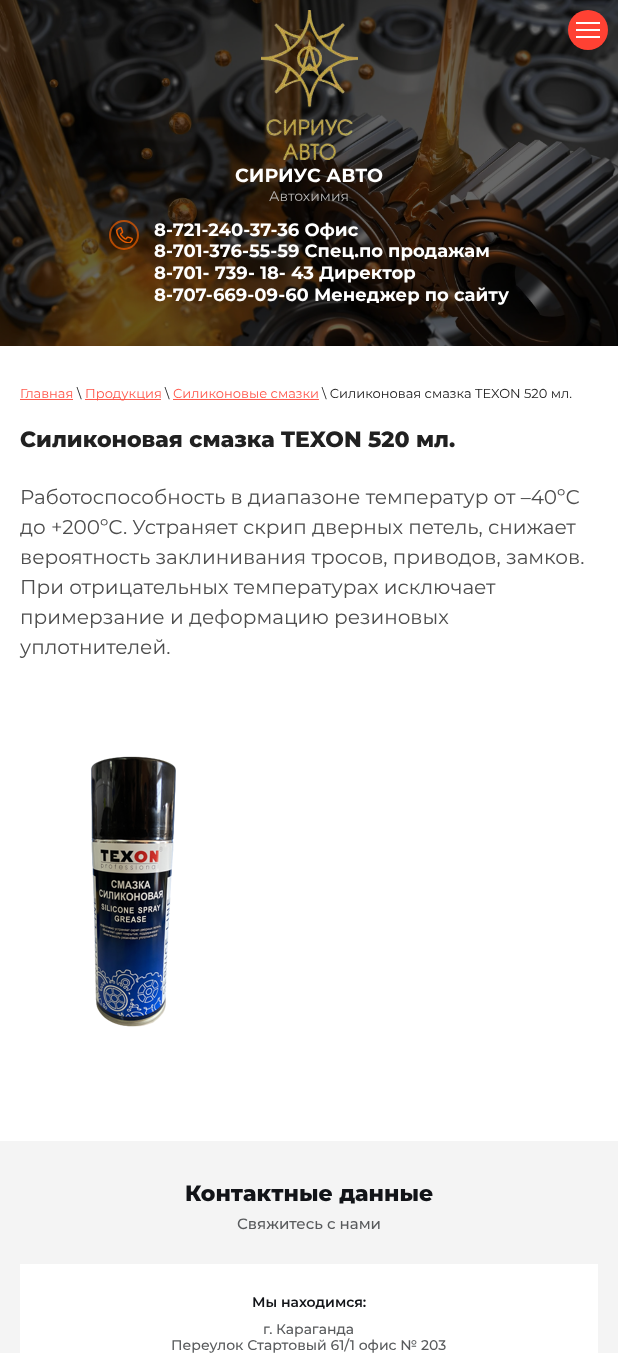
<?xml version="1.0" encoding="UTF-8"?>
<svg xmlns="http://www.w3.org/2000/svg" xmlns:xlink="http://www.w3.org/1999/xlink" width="618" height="1353">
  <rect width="100%" height="100%" fill="#ffffff" />
  <image x="0" y="0" width="618" height="346" xlink:href="image1.png" />
  <circle cx="588" cy="30" r="20" fill="#ff4133" />
  <rect x="576" y="22" width="24" height="2" fill="#ffffff" />
  <rect x="576" y="29" width="24" height="2" fill="#ffffff" />
  <rect x="576" y="36" width="24" height="2" fill="#ffffff" />
  <image x="261" y="10" width="97" height="150" xlink:href="image2.png" />
  <image x="116" y="227" width="17" height="16" xlink:href="image3.png" />
  <circle cx="124" cy="235" r="14" fill="none" stroke="#ea5d00" stroke-opacity="0.7" stroke-width="2" />
  <rect x="20" y="399" width="53" height="1" fill="#ff584c" />
  <rect x="85" y="399" width="76" height="1" fill="#ff584c" />
  <rect x="173" y="399" width="146" height="1" fill="#ff584c" />
  <image x="91" y="756" width="85" height="271" xlink:href="image4.png" />
  <rect y="1141" width="618" height="212" fill="#f4f4f4" />
  <rect x="20" y="1264" width="578" height="89" fill="#ffffff" />
  <text x="235" y="182" style="font-family: Montserrat; font-size: 19px; font-weight: bold; fill: #ffffff">СИРИУС АВТО</text>
  <text x="269" y="201" style="font-family: Montserrat; font-size: 14px; fill: #b9b7b5">Автохимия</text>
  <text x="154" y="236" style="font-family: Montserrat; font-size: 18px; font-weight: bold; fill: #ffffff">8-721-240-37-36 Офис</text>
  <text x="154" y="257" style="font-family: Montserrat; font-size: 18px; font-weight: bold; fill: #ffffff">8-701-376-55-59 Спец.по продажам</text>
  <text x="154" y="279" style="font-family: Montserrat; font-size: 18px; font-weight: bold; fill: #ffffff">8-701- 739- 18- 43 Директор</text>
  <text x="154" y="301" style="font-family: Montserrat; font-size: 18px; font-weight: bold; fill: #ffffff">8-707-669-09-60 Менеджер по сайту</text>
  <text x="20" y="398" style="font-family: Montserrat; font-size: 13px; fill: #ff584c">Главная</text>
  <text x="77" y="398" style="font-family: Montserrat; font-size: 13px; fill: #212121">\</text>
  <text x="85" y="398" style="font-family: Montserrat; font-size: 13px; fill: #ff584c">Продукция</text>
  <text x="165" y="398" style="font-family: Montserrat; font-size: 13px; fill: #212121">\</text>
  <text x="173" y="398" style="font-family: Montserrat; font-size: 13px; fill: #ff584c">Силиконовые смазки</text>
  <text x="322" y="398" style="font-family: Montserrat; font-size: 13px; fill: #212121">\ Силиконовая смазка TEXON 520 мл.</text>
  <text x="20" y="447" style="font-family: Montserrat; font-size: 22px; font-weight: 800; fill: #212121">Силиконовая смазка TEXON 520 мл.</text>
  <text x="20" y="504" style="font-family: Montserrat; font-size: 20px; fill: #4d4d4d">Работоспособность в диапазоне температур от –40ºС</text>
  <text x="20" y="534" style="font-family: Montserrat; font-size: 20px; fill: #4d4d4d">до +200ºС. Устраняет скрип дверных петель, снижает</text>
  <text x="20" y="564" style="font-family: Montserrat; font-size: 20px; fill: #4d4d4d">вероятность заклинивания тросов, приводов, замков.</text>
  <text x="20" y="594" style="font-family: Montserrat; font-size: 20px; fill: #4d4d4d">При отрицательных температурах исключает</text>
  <text x="20" y="624" style="font-family: Montserrat; font-size: 20px; fill: #4d4d4d">примерзание и деформацию резиновых</text>
  <text x="20" y="654" style="font-family: Montserrat; font-size: 20px; fill: #4d4d4d">уплотнителей.</text>
  <text x="185" y="1201" style="font-family: Montserrat; font-size: 22px; font-weight: 800; fill: #121418">Контактные данные</text>
  <text x="237" y="1229" style="font-family: Montserrat; font-size: 15px; font-weight: 500; fill: #595b5d">Свяжитесь с нами</text>
  <text x="252" y="1307" style="font-family: Montserrat; font-size: 14px; font-weight: 600; fill: #121418">Мы находимся:</text>
  <text x="263" y="1334" style="font-family: Montserrat; font-size: 14px; font-weight: 500; fill: #595b5d">г. Караганда</text>
  <text x="171" y="1350" style="font-family: Montserrat; font-size: 14px; font-weight: 500; fill: #595b5d">Переулок Стартовый 61/1 офис № 203</text>
</svg>
